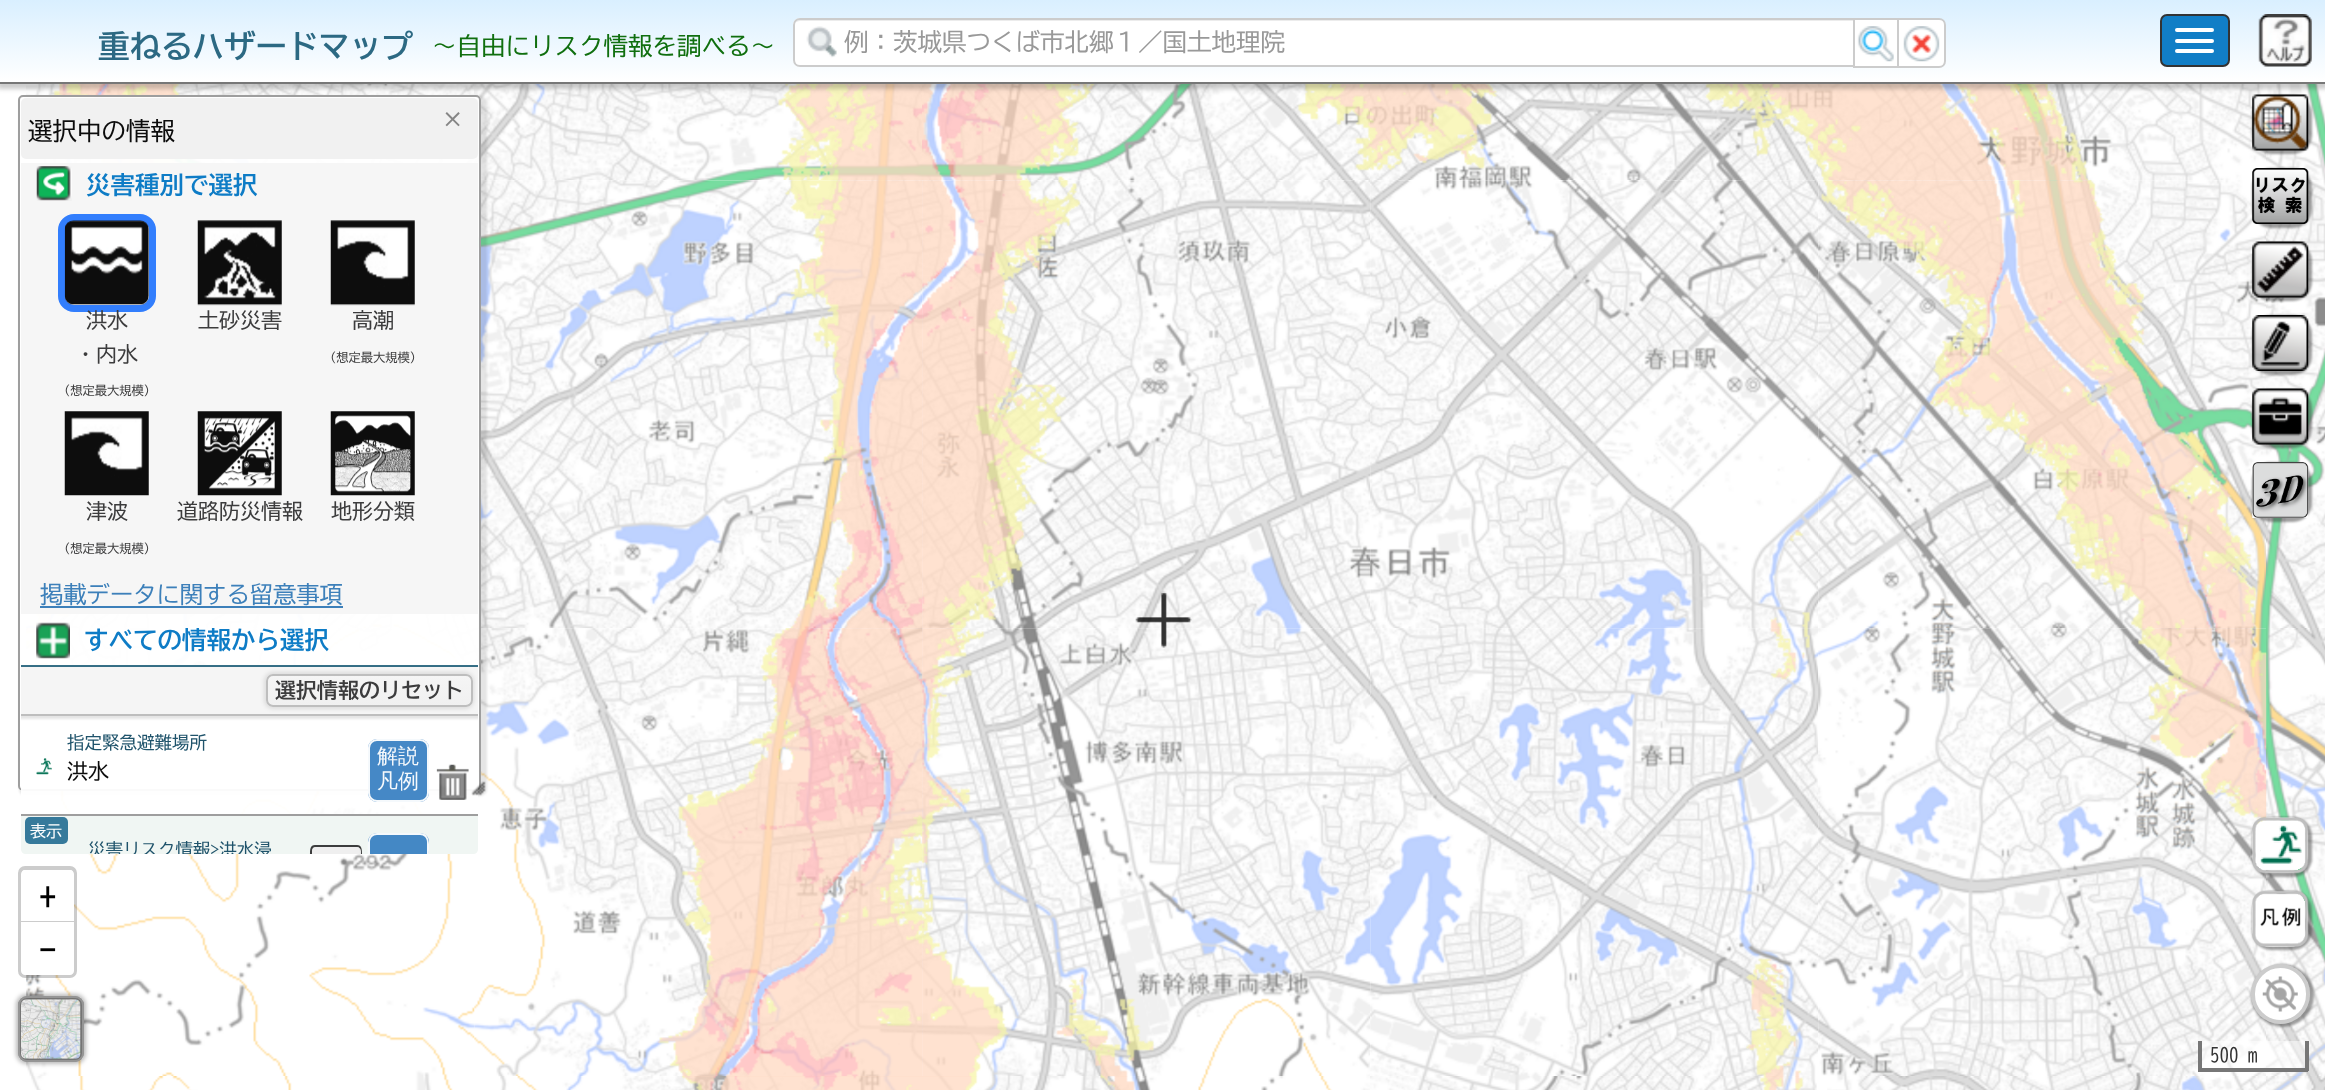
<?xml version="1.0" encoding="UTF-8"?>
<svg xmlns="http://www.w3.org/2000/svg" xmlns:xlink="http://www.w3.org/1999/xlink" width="2325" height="1090">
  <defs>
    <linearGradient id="g1" gradientUnits="userSpaceOnUse" x1="1163" y1="0" x2="1163" y2="82"><stop offset="0" stop-color="#d9efff" /><stop offset="1" stop-color="#ffffff" /></linearGradient>
    <clipPath id="clip1"><path d="M 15 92 h 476 v 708 h -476 z m 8 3 h 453 c 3 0 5 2 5 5 v 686 c 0 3 -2 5 -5 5 h -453 c -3 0 -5 -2 -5 -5 v -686 c 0 -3 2 -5 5 -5 z" clip-rule="evenodd" /></clipPath>
    <clipPath id="clip2"><rect x="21" y="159" width="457" height="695" rx="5" /></clipPath>
    <clipPath id="clip3"><path d="M 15 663 h 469 v 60 h -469 z m 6 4 h 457 v 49 h -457 z" clip-rule="evenodd" /></clipPath>
    <clipPath id="clip4"><path d="M 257 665 h 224 v 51 h -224 z m 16 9 h 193 c 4 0 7 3 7 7 v 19 c 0 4 -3 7 -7 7 h -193 c -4 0 -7 -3 -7 -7 v -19 c 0 -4 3 -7 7 -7 z" clip-rule="evenodd" /></clipPath>
    <clipPath id="clip5"><rect x="266" y="674" width="207" height="33" rx="7" /></clipPath>
    <linearGradient id="g2" gradientUnits="userSpaceOnUse" x1="369" y1="646" x2="369" y2="676"><stop offset="0" stop-color="#f5f5f5" stop-opacity="0.95" /><stop offset="1" stop-color="#f0f0f0" stop-opacity="0.95" /></linearGradient>
    <linearGradient id="g3" gradientUnits="userSpaceOnUse" x1="369" y1="676" x2="369" y2="705"><stop offset="0" stop-color="#f5f5f5" stop-opacity="0.95" /><stop offset="1" stop-color="#f0f0f0" stop-opacity="0.95" /></linearGradient>
    <linearGradient id="g4" gradientUnits="userSpaceOnUse" x1="369" y1="705" x2="369" y2="735"><stop offset="0" stop-color="#f5f5f5" stop-opacity="0.95" /><stop offset="1" stop-color="#f0f0f0" stop-opacity="0.95" /></linearGradient>
    <clipPath id="clip6"><path d="M 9 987 h 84 v 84 h -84 z m 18 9 h 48 c 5 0 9 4 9 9 v 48 c 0 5 -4 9 -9 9 h -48 c -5 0 -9 -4 -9 -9 v -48 c 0 -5 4 -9 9 -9 z" clip-rule="evenodd" /></clipPath>
    <clipPath id="clip7"><path d="M 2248 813 h 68 v 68 h -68 z m 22 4 h 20 c 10 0 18 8 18 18 v 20 c 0 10 -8 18 -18 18 h -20 c -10 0 -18 -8 -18 -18 v -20 c 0 -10 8 -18 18 -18 z" clip-rule="evenodd" /></clipPath>
    <clipPath id="clip8"><path d="M 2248 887 h 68 v 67 h -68 z m 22 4 h 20 c 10 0 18 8 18 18 v 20 c 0 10 -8 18 -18 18 h -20 c -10 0 -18 -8 -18 -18 v -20 c 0 -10 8 -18 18 -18 z" clip-rule="evenodd" /></clipPath>
    <clipPath id="clip9"><rect x="21" y="159" width="457" height="695" rx="5" /></clipPath>
  </defs>
  <rect width="100%" height="100%" fill="#ffffff" />
  <image x="26" y="84" width="448" height="96" xlink:href="image16.png" />
  <image x="474" y="84" width="448" height="96" xlink:href="image17.png" />
  <image x="922" y="84" width="448" height="96" xlink:href="image18.png" />
  <image x="1370" y="84" width="448" height="96" xlink:href="image19.png" />
  <image x="1818" y="84" width="448" height="96" xlink:href="image20.png" />
  <image x="2266" y="84" width="59" height="96" xlink:href="image21.png" />
  <image x="53" y="84" width="136" height="96" xlink:href="image40.png" />
  <image x="778" y="84" width="144" height="96" xlink:href="image41.png" />
  <image x="922" y="84" width="448" height="96" xlink:href="image42.png" />
  <image x="1370" y="84" width="448" height="87" xlink:href="image43.png" />
  <image x="1818" y="84" width="271" height="96" xlink:href="image44.png" />
  <rect x="2252" y="95" width="60" height="59" rx="19" fill="#404040" fill-opacity="0.5" filter="blur(1px)" />
  <image x="2252" y="94" width="57" height="57" xlink:href="image59.png" />
  <rect x="-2" y="2" width="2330" height="87" fill="#000000" fill-opacity="0.2" filter="blur(2px)" />
  <rect y="82" width="2325" height="2" fill="#777777" />
  <rect width="2325" height="82" fill="url(#g1)" />
  <path d="M 800 18 h 1055 v 49 h -1055 c -4 0 -7 -3 -7 -7 v -35 c 0 -4 3 -7 7 -7 z" fill="#ffffff" />
  <image x="806" y="26" width="31" height="32" xlink:href="image1.png" />
  <path d="M 800 21 h 1053 v -2 h -1053 c -2 0 -5 2 -5 4 c 1 -1 3 -2 5 -2 z" fill="#ececec" />
  <path d="M 800 19 h 1054 v 47 h -1054 c -3.5 0 -6 -2.5 -6 -6 v -35 c 0 -3.5 2.5 -6 6 -6 z" fill="none" stroke="#cccccc" stroke-width="2" />
  <rect x="1854" y="19" width="44" height="48" fill="#ffffff" stroke="#cccccc" stroke-width="2" />
  <image x="1857" y="26" width="37" height="36" xlink:href="image2.png" />
  <path d="M 1898 19 h 41 c 3.5 0 6 2.5 6 6 v 36 c 0 3.5 -2.5 6 -6 6 h -41 z" fill="#ffffff" stroke="#cccccc" stroke-width="2" />
  <image x="1903" y="26" width="37" height="36" xlink:href="image3.png" />
  <rect x="2161" y="15" width="68" height="51" rx="6" fill="#117ec6" stroke="#333333" stroke-width="2" />
  <rect x="2175" y="28" width="39" height="4" rx="2" fill="#ffffff" />
  <rect x="2175" y="39" width="39" height="4" rx="2" fill="#ffffff" />
  <rect x="2175" y="49" width="39" height="4" rx="2" fill="#ffffff" />
  <image x="2258" y="14" width="54" height="53" xlink:href="image4.png" />
  <image x="922" y="180" width="449" height="449" xlink:href="image24.png" />
  <image x="474" y="180" width="449" height="449" xlink:href="image23.png" />
  <image x="26" y="180" width="449" height="449" xlink:href="image22.png" />
  <image x="1370" y="180" width="449" height="449" xlink:href="image25.png" />
  <image x="922" y="628" width="449" height="449" xlink:href="image30.png" />
  <image x="474" y="628" width="449" height="449" xlink:href="image29.png" />
  <image x="26" y="628" width="449" height="449" xlink:href="image28.png" />
  <image x="32" y="180" width="309" height="449" xlink:href="image45.png" />
  <image x="26" y="628" width="24" height="23" xlink:href="image50.png" />
  <g clip-path="url(#clip1)">
    <rect x="19" y="96" width="468" height="700" rx="7" fill="#000000" fill-opacity="0.1" filter="blur(1px)" />
  </g>
  <rect x="18" y="95" width="463" height="696" rx="5" fill="#ffffff" fill-opacity="0.95" />
  <rect x="19" y="96" width="461" height="694" rx="4" fill="none" stroke="#999999" stroke-opacity="0.95" stroke-width="2" />
  <rect x="21" y="98" width="457" height="61" rx="5" fill="#f0f0f0" fill-opacity="0.95" />
  <rect x="21" y="163" width="457" height="451" fill="#f5f5f5" fill-opacity="0.95" />
  <image x="36" y="166" width="36" height="35" xlink:href="image5.png" />
  <rect x="61.5" y="217.5" width="91" height="91" rx="12.5" fill="none" stroke="#327efd" stroke-width="7" />
  <image x="64" y="220" width="85" height="85" xlink:href="image6.png" />
  <image x="197" y="220" width="85" height="86" xlink:href="image7.png" />
  <image x="330" y="220" width="85" height="86" xlink:href="image8.png" />
  <image x="64" y="411" width="85" height="85" xlink:href="image9.png" />
  <image x="197" y="411" width="85" height="85" xlink:href="image10.png" />
  <image x="330" y="411" width="85" height="85" xlink:href="image11.png" />
  <rect x="40" y="606" width="303" height="2" fill="#3d80ba" />
  <rect x="21" y="665" width="457" height="2" fill="#2c6983" fill-opacity="0.95" />
  <image x="36" y="622" width="34" height="37" xlink:href="image12.png" />
  <rect x="21" y="716" width="457" height="100" fill="#ffffff" fill-opacity="0.95" />
  <g clip-path="url(#clip2)">
    <g clip-path="url(#clip3)">
      <rect x="19" y="667" width="461" height="52" fill="#000000" fill-opacity="0.1" filter="blur(1px)" />
    </g>
  </g>
  <rect x="21" y="667" width="457" height="47" fill="#f4f4f4" fill-opacity="0.95" />
  <rect x="21" y="714" width="457" height="2" fill="#bebebe" />
  <g clip-path="url(#clip4)">
    <rect x="264" y="672" width="210" height="37" rx="9" fill="#000000" fill-opacity="0.1" filter="blur(2px)" />
  </g>
  <g clip-path="url(#clip5)">
    <rect x="266" y="674" width="207" height="2" fill="url(#g2)" />
    <rect x="266" y="676" width="207" height="29" fill="url(#g3)" />
    <rect x="266" y="705" width="207" height="2" fill="url(#g4)" />
  </g>
  <rect x="267" y="675" width="205" height="31" rx="6" fill="none" stroke="#bbbbbb" stroke-opacity="0.95" stroke-width="2" />
  <rect x="21" y="814" width="457" height="2" fill="#999999" fill-opacity="0.95" />
  <image x="36" y="758" width="16" height="17" xlink:href="image13.png" />
  <rect x="368" y="739" width="61" height="63" rx="9" fill="#3b82c3" fill-opacity="0.95" />
  <rect x="369" y="740" width="59" height="61" rx="8" fill="none" stroke="#ffffff" stroke-opacity="0.95" stroke-width="2" />
  <image x="436" y="764" width="33" height="36" xlink:href="image14.png" />
  <path d="M 21 816 h 457 v 33 c 0 3 -2 5 -5 5 h -447 c -3 0 -5 -2 -5 -5 z" fill="#ffffff" fill-opacity="0.95" />
  <path d="M 21 816 h 457 v 33 c 0 3 -2 5 -5 5 h -447 c -3 0 -5 -2 -5 -5 z" fill="#eff6f2" fill-opacity="0.95" />
  <rect x="25" y="817" width="43" height="27" rx="5" fill="#367a9b" />
  <path d="M 315 845 c -5 0 -5 5 -5 9 h 2 c 0 -8 1 -7 10 -7 h 28 c 9 0 10 -1 10 7 h 2 c 0 -4 0 -9 -5 -9 z" fill="#3c3d3d" />
  <path d="M 316 847 h 41 c 2 0 4 2 4 4 v 3 h -49 v -3 c 0 -2 2 -4 4 -4 z" fill="#eeeeee" fill-opacity="0.95" />
  <path d="M 377 833 h 43 c 5 0 9 4 9 9 v 12 h -61 v -12 c 0 -5 4 -9 9 -9 z" fill="#4488c5" />
  <path d="M 377 833 c -11 0 -9 14 -9 21 h 2 v -12 c 0 -4 3 -7 7 -7 h 43 c 4 0 7 3 7 7 v 12 h 2 c 0 -7 2 -21 -9 -21 z" fill="#ffffff" fill-opacity="0.95" />
  <image x="471" y="781" width="15" height="15" xlink:href="image15.png" />
  <image x="1818" y="180" width="448" height="449" xlink:href="image26.png" />
  <image x="2266" y="180" width="59" height="448" xlink:href="image27.png" />
  <image x="1370" y="628" width="449" height="449" xlink:href="image31.png" />
  <image x="1818" y="628" width="448" height="449" xlink:href="image32.png" />
  <image x="2266" y="628" width="59" height="448" xlink:href="image33.png" />
  <image x="31" y="1076" width="422" height="14" xlink:href="image34.png" />
  <image x="500" y="1076" width="397" height="14" xlink:href="image35.png" />
  <image x="938" y="1076" width="432" height="14" xlink:href="image36.png" />
  <image x="1370" y="1076" width="447" height="14" xlink:href="image37.png" />
  <image x="1827" y="1076" width="439" height="14" xlink:href="image38.png" />
  <image x="2266" y="1076" width="59" height="14" xlink:href="image39.png" />
  <image x="922" y="180" width="159" height="449" xlink:href="image47.png" />
  <image x="922" y="628" width="232" height="449" xlink:href="image52.png" />
  <image x="785" y="180" width="138" height="449" xlink:href="image46.png" />
  <image x="1770" y="530" width="40" height="99" xlink:href="image48.png" />
  <image x="1821" y="180" width="436" height="449" xlink:href="image49.png" />
  <image x="657" y="628" width="266" height="449" xlink:href="image51.png" />
  <image x="1746" y="628" width="64" height="449" xlink:href="image53.png" />
  <image x="2138" y="628" width="129" height="197" xlink:href="image54.png" />
  <image x="682" y="1076" width="240" height="14" xlink:href="image55.png" />
  <image x="922" y="1076" width="213" height="14" xlink:href="image56.png" />
  <image x="1760" y="1076" width="44" height="14" xlink:href="image57.png" />
  <image x="1135" y="593" width="57" height="55" xlink:href="image58.png" />
  <rect x="2252" y="168" width="60" height="60" rx="19" fill="#404040" fill-opacity="0.5" filter="blur(1px)" />
  <image x="2252" y="168" width="57" height="56" xlink:href="image60.png" />
  <rect x="2252" y="242" width="60" height="59" rx="19" fill="#404040" fill-opacity="0.5" filter="blur(1px)" />
  <image x="2252" y="241" width="57" height="57" xlink:href="image61.png" />
  <rect x="2252" y="315" width="60" height="60" rx="19" fill="#404040" fill-opacity="0.5" filter="blur(1px)" />
  <image x="2252" y="315" width="57" height="56" xlink:href="image62.png" />
  <rect x="2252" y="389" width="60" height="59" rx="19" fill="#404040" fill-opacity="0.5" filter="blur(1px)" />
  <image x="2252" y="388" width="57" height="57" xlink:href="image63.png" />
  <rect x="2252" y="462" width="60" height="60" rx="19" fill="#404040" fill-opacity="0.5" filter="blur(1px)" />
  <image x="2252" y="462" width="57" height="56" xlink:href="image64.png" />
  <rect x="20" y="868" width="55" height="108" rx="5" fill="none" stroke="#000000" stroke-opacity="0.2" stroke-width="4" />
  <path d="M 25 870 h 45 c 2 0 4 2 4 4 v 48 h -53 v -48 c 0 -2 2 -4 4 -4 z" fill="#ffffff" />
  <rect x="21" y="921" width="53" height="1" fill="#cccccc" />
  <path d="M 21 922 h 53 v 49 c 0 2 -2 4 -4 4 h -45 c -2 0 -4 -2 -4 -4 z" fill="#ffffff" />
  <g clip-path="url(#clip6)">
    <rect x="16" y="994" width="70" height="70" rx="11" fill="#000000" fill-opacity="0.27" filter="blur(2px)" />
  </g>
  <rect x="18" y="996" width="66" height="66" rx="9" fill="#666666" fill-opacity="0.9" />
  <rect x="19" y="997" width="64" height="64" rx="8" fill="none" stroke="#999999" stroke-opacity="0.9" stroke-width="2" />
  <image x="21" y="999" width="60" height="60" xlink:href="image65.png" />
  <g clip-path="url(#clip7)">
    <rect x="2252" y="817" width="60" height="60" rx="19" fill="#404040" fill-opacity="0.5" filter="blur(1px)" />
  </g>
  <image x="2252" y="817" width="57" height="57" xlink:href="image66.png" />
  <g clip-path="url(#clip8)">
    <rect x="2252" y="891" width="60" height="59" rx="19" fill="#404040" fill-opacity="0.5" filter="blur(1px)" />
  </g>
  <image x="2252" y="890" width="57" height="57" xlink:href="image67.png" />
  <rect x="2251" y="964" width="63" height="63" rx="31.5" fill="#404040" fill-opacity="0.5" filter="blur(1px)" />
  <rect x="2251" y="964" width="59" height="60" rx="29.5" fill="#ffffff" />
  <rect x="2253" y="966" width="55" height="56" rx="27.5" fill="none" stroke="#000000" stroke-opacity="0.2" stroke-width="4" />
  <image x="2262" y="976" width="36" height="36" xlink:href="image68.png" />
  <rect x="2202" y="1041" width="103" height="27" fill="#ffffff" fill-opacity="0.5" />
  <rect x="2305" y="1041" width="4" height="30" fill="#777777" />
  <rect x="2198" y="1068" width="110" height="4" fill="#777777" />
  <rect x="2198" y="1041" width="4" height="30" fill="#777777" />
  <text x="98" y="58" style="font-family: BIZ UDGothic; font-size: 31.5px; font-weight: bold; fill: #2c6983">重ねるハザードマップ</text>
  <text x="432" y="55" style="font-family: BIZ UDGothic; font-size: 24.5px; fill: #106f0f">～自由にリスク情報を調べる～</text>
  <text x="844" y="51" style="font-family: BIZ UDGothic; font-size: 24.5px; fill: #999999">例：茨城県つくば市北郷１／国土地理院</text>
  <text x="28" y="140" style="font-family: BIZ UDGothic; font-size: 24.5px; fill: #0c0c0c">選択中の情報</text>
  <text x="441" y="128" style="font-family: BIZ UDGothic; font-size: 23.3px; font-weight: bold; fill: #868686">×</text>
  <text x="86" y="194" style="font-family: BIZ UDGothic; font-size: 24.5px; font-weight: bold; fill: #0e7cc6">災害種別で選択</text>
  <text x="86" y="328" style="font-family: BIZ UDGothic; font-size: 21px; fill: #3c3c3d">洪水</text>
  <text x="75" y="362" style="font-family: BIZ UDGothic; font-size: 21px; fill: #3c3c3d">・内水</text>
  <text x="64" y="395" style="font-family: BIZ UDGothic; font-size: 12.25px; fill: #3c3c3d">(想定最大規模)</text>
  <text x="198" y="328" style="font-family: BIZ UDGothic; font-size: 21px; fill: #3c3c3d">土砂災害</text>
  <text x="352" y="328" style="font-family: BIZ UDGothic; font-size: 21px; fill: #3c3c3d">高潮</text>
  <text x="330" y="362" style="font-family: BIZ UDGothic; font-size: 12.25px; fill: #3c3c3d">(想定最大規模)</text>
  <text x="86" y="519" style="font-family: BIZ UDGothic; font-size: 21px; fill: #3c3c3d">津波</text>
  <text x="64" y="553" style="font-family: BIZ UDGothic; font-size: 12.25px; fill: #3c3c3d">(想定最大規模)</text>
  <text x="177" y="519" style="font-family: BIZ UDGothic; font-size: 21px; fill: #3c3c3d">道路防災情報</text>
  <text x="331" y="519" style="font-family: BIZ UDGothic; font-size: 21px; fill: #3c3c3d">地形分類</text>
  <text x="40" y="603" style="font-family: BIZ UDGothic; font-size: 23.3px; fill: #3d80ba">掲載データに関する留意事項</text>
  <text x="84" y="649" style="font-family: BIZ UDGothic; font-size: 24.5px; font-weight: bold; fill: #0e7cc6">すべての情報から選択</text>
  <text x="275" y="698" style="font-family: BIZ UDGothic; font-size: 21px; font-weight: bold; fill: #3c3c3d">選択情報のリセット</text>
  <text x="67" y="749" style="font-family: BIZ UDGothic; font-size: 17.5px; fill: #1f536b">指定緊急避難場所</text>
  <text x="67" y="779" style="font-family: BIZ UDGothic; font-size: 21px; fill: #0c0c0c">洪水</text>
  <text x="377" y="763" style="font-family: WenQuanYi Zen Hei; font-size: 21px; font-weight: 500; fill: #f6f9fc">解説</text>
  <text x="377" y="788" style="font-family: WenQuanYi Zen Hei; font-size: 21px; font-weight: 500; fill: #f6f9fc">凡例</text>
  <text x="30" y="837" style="font-family: BIZ UDGothic; font-size: 16px; fill: #ffffff">表示</text>
  <g clip-path="url(#clip9)">
    <text x="88" y="856" style="font-family: BIZ UDGothic; font-size: 17.5px; fill: #1f536b">災害リスク情報&gt;洪水浸</text>
  </g>
  <text x="39" y="910" style="font-family: BIZ UDGothic; font-size: 35px; font-weight: bold; fill: #000000">+</text>
  <text x="39" y="963" style="font-family: BIZ UDGothic; font-size: 35px; font-weight: bold; fill: #000000">−</text>
  <text x="2210" y="1062" style="font-family: BIZ UDGothic; font-size: 19px; fill: #333333">500 m</text>
</svg>
